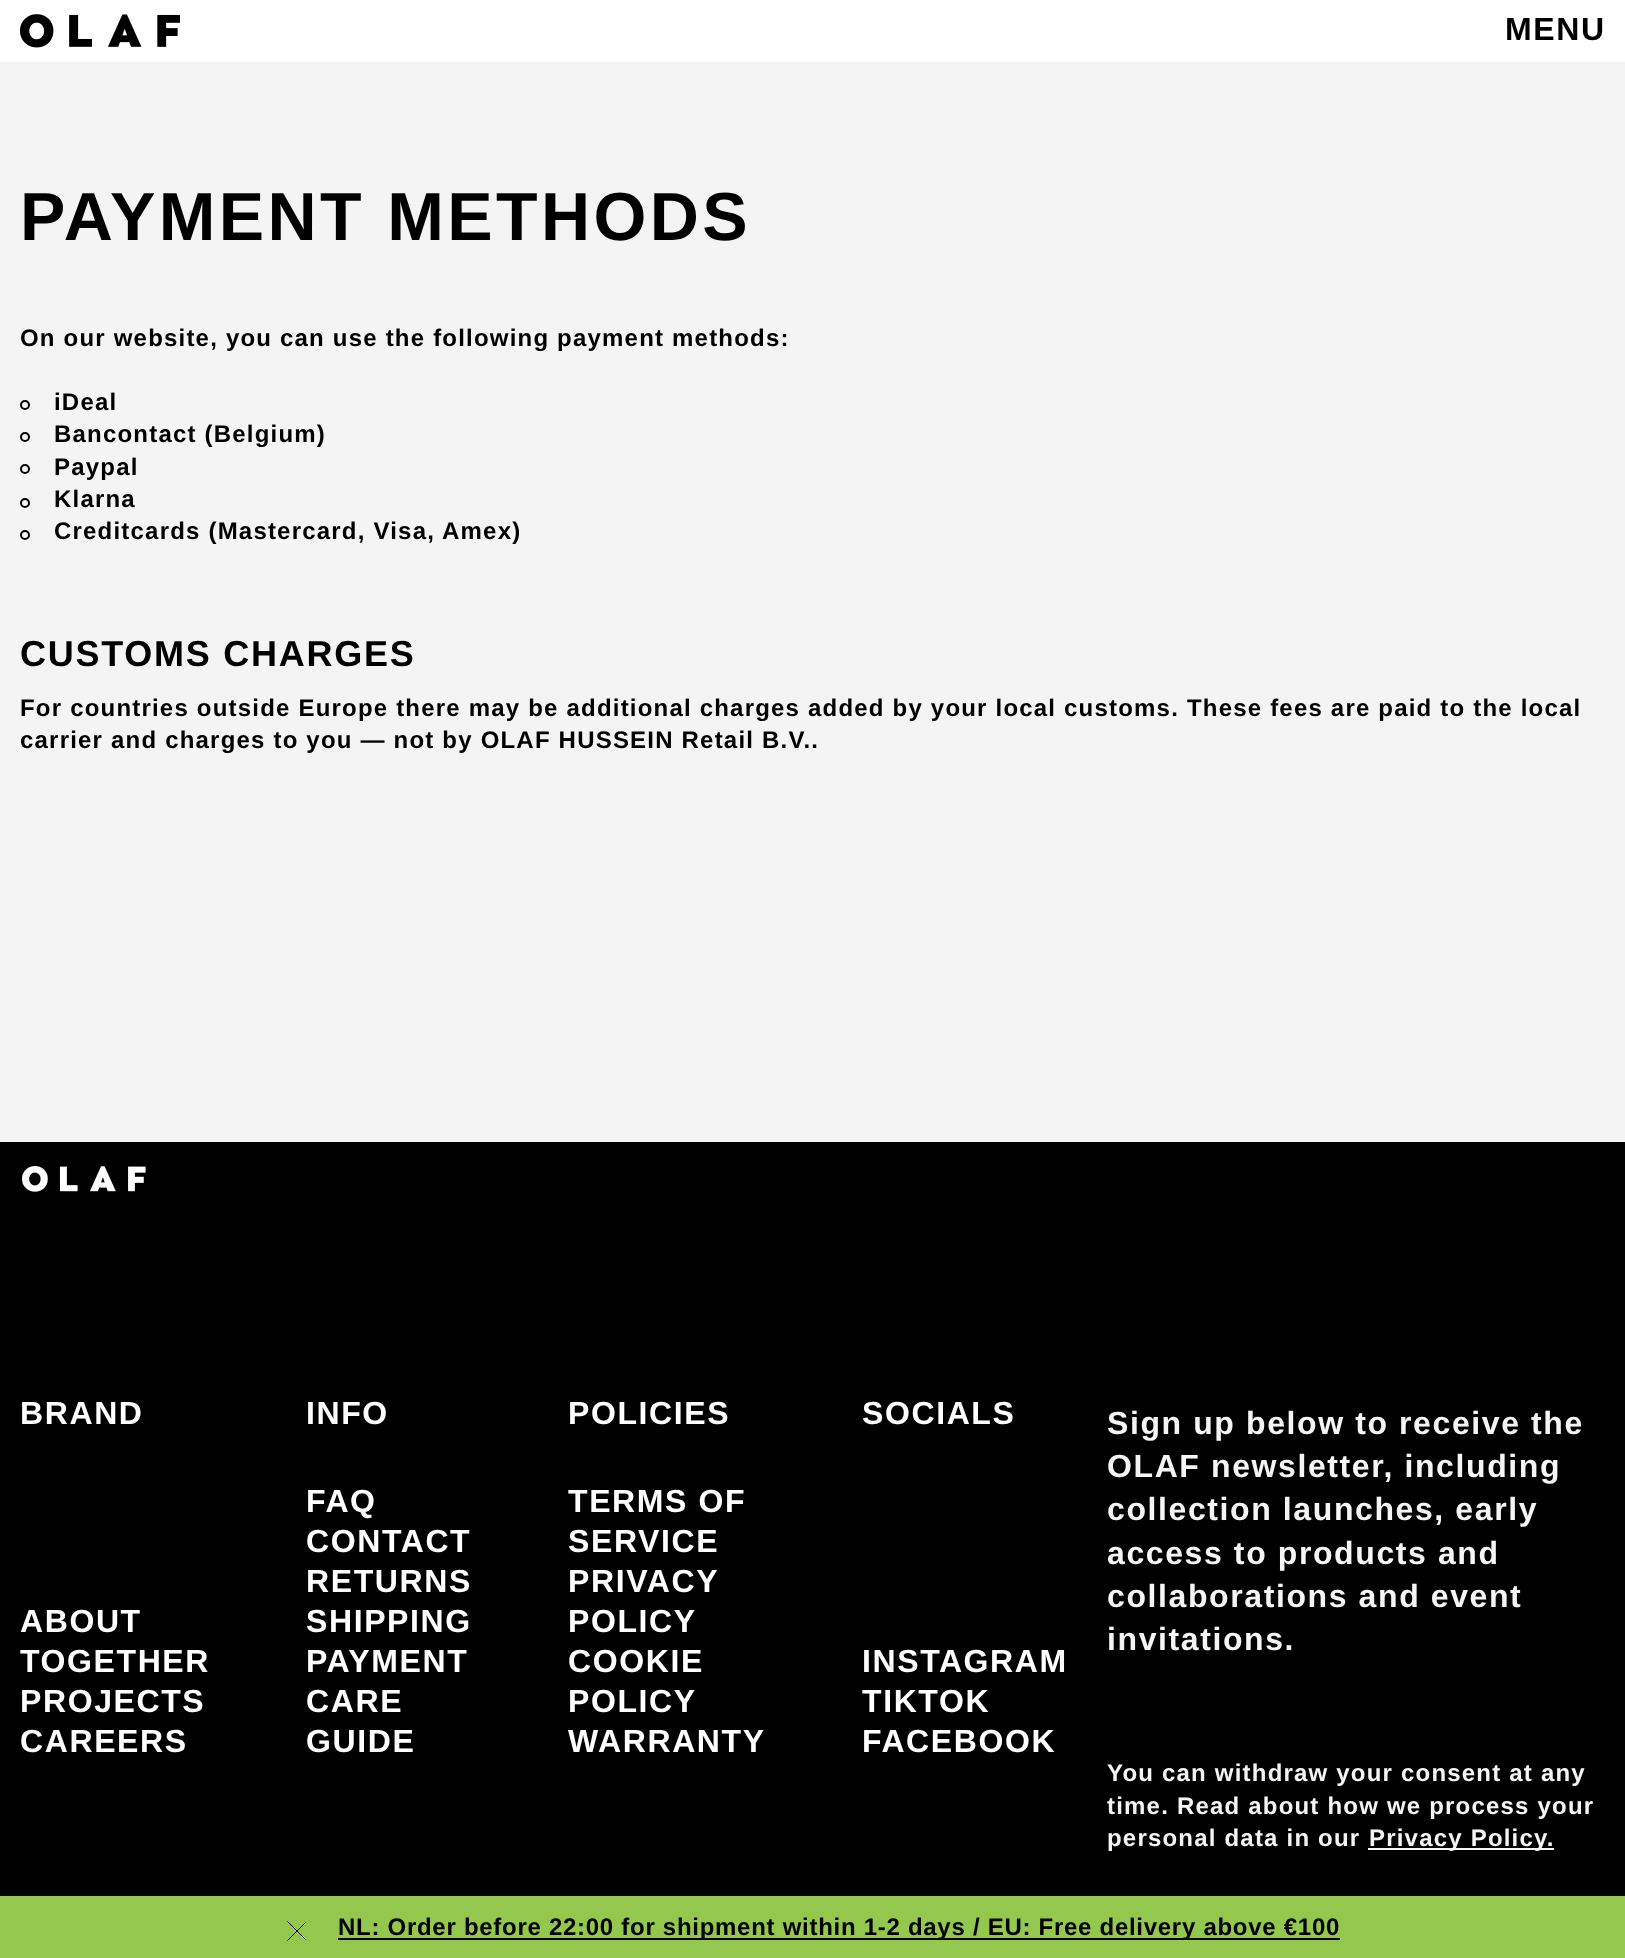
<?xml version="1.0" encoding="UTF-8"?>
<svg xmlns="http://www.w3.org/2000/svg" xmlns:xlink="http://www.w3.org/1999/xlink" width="1625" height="1958">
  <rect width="100%" height="100%" fill="#f4f4f4" />
  <rect width="1625" height="62" fill="#ffffff" />
  <image x="20" y="14" width="160" height="34" xlink:href="image1.png" />
  <circle cx="25" cy="405" r="4" fill="none" stroke="#000000" stroke-width="2" />
  <circle cx="25" cy="437" r="4" fill="none" stroke="#000000" stroke-width="2" />
  <circle cx="25" cy="469" r="4" fill="none" stroke="#000000" stroke-width="2" />
  <circle cx="25" cy="503" r="4" fill="none" stroke="#000000" stroke-width="2" />
  <circle cx="25" cy="535" r="4" fill="none" stroke="#000000" stroke-width="2" />
  <rect y="1142" width="1625" height="754" fill="#000000" />
  <image x="22" y="1166" width="124" height="26" xlink:href="image2.png" />
  <rect x="1368" y="1848" width="186" height="2" fill="#f5f5f5" />
  <rect y="1896" width="1625" height="62" fill="#93c74e" />
  <path d="M 305.5 1922.5 l -18 18 m 0 -19 l 18 18" fill="none" stroke="#000000" />
  <rect x="338" y="1938" width="1002" height="2" fill="#000000" />
  <text x="1505" y="40" style="font-family: Liberation Sans; font-size: 32px; font-weight: bold; letter-spacing: 1.6px; fill: #000000">MENU</text>
  <text x="20" y="240" style="font-family: Liberation Sans; font-size: 68px; font-weight: bold; letter-spacing: 3.4px; fill: #000000">PAYMENT METHODS</text>
  <text x="20" y="346" style="font-family: Liberation Sans; font-size: 24px; font-weight: bold; letter-spacing: 1.2px; fill: #000000">On our website, you can use the following payment methods:</text>
  <text x="54" y="410" style="font-family: Liberation Sans; font-size: 24px; font-weight: bold; letter-spacing: 1.2px; fill: #000000">iDeal</text>
  <text x="54" y="442" style="font-family: Liberation Sans; font-size: 24px; font-weight: bold; letter-spacing: 1.2px; fill: #000000">Bancontact (Belgium)</text>
  <text x="54" y="475" style="font-family: Liberation Sans; font-size: 24px; font-weight: bold; letter-spacing: 1.2px; fill: #000000">Paypal</text>
  <text x="54" y="507" style="font-family: Liberation Sans; font-size: 24px; font-weight: bold; letter-spacing: 1.2px; fill: #000000">Klarna</text>
  <text x="54" y="539" style="font-family: Liberation Sans; font-size: 24px; font-weight: bold; letter-spacing: 1.2px; fill: #000000">Creditcards (Mastercard, Visa, Amex)</text>
  <text x="20" y="666" style="font-family: Liberation Sans; font-size: 36px; font-weight: bold; letter-spacing: 1.75px; fill: #000000">CUSTOMS CHARGES</text>
  <text x="20" y="716" style="font-family: Liberation Sans; font-size: 24px; font-weight: bold; letter-spacing: 1.2px; fill: #000000">For countries outside Europe there may be additional charges added by your local customs. These fees are paid to the local</text>
  <text x="20" y="748" style="font-family: Liberation Sans; font-size: 24px; font-weight: bold; letter-spacing: 1.2px; fill: #000000">carrier and charges to you — not by OLAF HUSSEIN Retail B.V..</text>
  <text x="20" y="1424" style="font-family: Liberation Sans; font-size: 32px; font-weight: bold; letter-spacing: 1.6px; fill: #ffffff">BRAND</text>
  <text x="20" y="1632" style="font-family: Liberation Sans; font-size: 32px; font-weight: bold; letter-spacing: 1.6px; fill: #ffffff">ABOUT</text>
  <text x="20" y="1672" style="font-family: Liberation Sans; font-size: 32px; font-weight: bold; letter-spacing: 1.6px; fill: #ffffff">TOGETHER</text>
  <text x="20" y="1712" style="font-family: Liberation Sans; font-size: 32px; font-weight: bold; letter-spacing: 1.6px; fill: #ffffff">PROJECTS</text>
  <text x="20" y="1752" style="font-family: Liberation Sans; font-size: 32px; font-weight: bold; letter-spacing: 1.6px; fill: #ffffff">CAREERS</text>
  <text x="306" y="1424" style="font-family: Liberation Sans; font-size: 32px; font-weight: bold; letter-spacing: 1.6px; fill: #ffffff">INFO</text>
  <text x="306" y="1512" style="font-family: Liberation Sans; font-size: 32px; font-weight: bold; letter-spacing: 1.6px; fill: #ffffff">FAQ</text>
  <text x="306" y="1552" style="font-family: Liberation Sans; font-size: 32px; font-weight: bold; letter-spacing: 1.6px; fill: #ffffff">CONTACT</text>
  <text x="306" y="1592" style="font-family: Liberation Sans; font-size: 32px; font-weight: bold; letter-spacing: 1.6px; fill: #ffffff">RETURNS</text>
  <text x="306" y="1632" style="font-family: Liberation Sans; font-size: 32px; font-weight: bold; letter-spacing: 1.6px; fill: #ffffff">SHIPPING</text>
  <text x="306" y="1672" style="font-family: Liberation Sans; font-size: 32px; font-weight: bold; letter-spacing: 1.6px; fill: #ffffff">PAYMENT</text>
  <text x="306" y="1712" style="font-family: Liberation Sans; font-size: 32px; font-weight: bold; letter-spacing: 1.6px; fill: #ffffff">CARE</text>
  <text x="306" y="1752" style="font-family: Liberation Sans; font-size: 32px; font-weight: bold; letter-spacing: 1.6px; fill: #ffffff">GUIDE</text>
  <text x="568" y="1424" style="font-family: Liberation Sans; font-size: 32px; font-weight: bold; letter-spacing: 1.6px; fill: #ffffff">POLICIES</text>
  <text x="568" y="1512" style="font-family: Liberation Sans; font-size: 32px; font-weight: bold; letter-spacing: 1.6px; fill: #ffffff">TERMS OF</text>
  <text x="568" y="1552" style="font-family: Liberation Sans; font-size: 32px; font-weight: bold; letter-spacing: 1.6px; fill: #ffffff">SERVICE</text>
  <text x="568" y="1592" style="font-family: Liberation Sans; font-size: 32px; font-weight: bold; letter-spacing: 1.6px; fill: #ffffff">PRIVACY</text>
  <text x="568" y="1632" style="font-family: Liberation Sans; font-size: 32px; font-weight: bold; letter-spacing: 1.6px; fill: #ffffff">POLICY</text>
  <text x="568" y="1672" style="font-family: Liberation Sans; font-size: 32px; font-weight: bold; letter-spacing: 1.6px; fill: #ffffff">COOKIE</text>
  <text x="568" y="1712" style="font-family: Liberation Sans; font-size: 32px; font-weight: bold; letter-spacing: 1.6px; fill: #ffffff">POLICY</text>
  <text x="568" y="1752" style="font-family: Liberation Sans; font-size: 32px; font-weight: bold; letter-spacing: 1.6px; fill: #ffffff">WARRANTY</text>
  <text x="862" y="1424" style="font-family: Liberation Sans; font-size: 32px; font-weight: bold; letter-spacing: 1.6px; fill: #ffffff">SOCIALS</text>
  <text x="862" y="1672" style="font-family: Liberation Sans; font-size: 32px; font-weight: bold; letter-spacing: 1.6px; fill: #ffffff">INSTAGRAM</text>
  <text x="862" y="1712" style="font-family: Liberation Sans; font-size: 32px; font-weight: bold; letter-spacing: 1.6px; fill: #ffffff">TIKTOK</text>
  <text x="862" y="1752" style="font-family: Liberation Sans; font-size: 32px; font-weight: bold; letter-spacing: 1.6px; fill: #ffffff">FACEBOOK</text>
  <text x="1107" y="1434" style="font-family: Liberation Sans; font-size: 32px; font-weight: bold; letter-spacing: 1.6px; fill: #f5f5f5">Sign up below to receive the</text>
  <text x="1107" y="1477" style="font-family: Liberation Sans; font-size: 32px; font-weight: bold; letter-spacing: 1.6px; fill: #f5f5f5">OLAF newsletter, including</text>
  <text x="1107" y="1520" style="font-family: Liberation Sans; font-size: 32px; font-weight: bold; letter-spacing: 1.6px; fill: #f5f5f5">collection launches, early</text>
  <text x="1107" y="1564" style="font-family: Liberation Sans; font-size: 32px; font-weight: bold; letter-spacing: 1.6px; fill: #f5f5f5">access to products and</text>
  <text x="1107" y="1607" style="font-family: Liberation Sans; font-size: 32px; font-weight: bold; letter-spacing: 1.6px; fill: #f5f5f5">collaborations and event</text>
  <text x="1107" y="1650" style="font-family: Liberation Sans; font-size: 32px; font-weight: bold; letter-spacing: 1.6px; fill: #f5f5f5">invitations.</text>
  <text x="1107" y="1781" style="font-family: Liberation Sans; font-size: 24px; font-weight: bold; letter-spacing: 1.2px; fill: #f5f5f5">You can withdraw your consent at any</text>
  <text x="1107" y="1814" style="font-family: Liberation Sans; font-size: 24px; font-weight: bold; letter-spacing: 1.2px; fill: #f5f5f5">time. Read about how we process your</text>
  <text x="1107" y="1846" style="font-family: Liberation Sans; font-size: 24px; font-weight: bold; letter-spacing: 1.2px; fill: #f5f5f5">personal data in our</text>
  <text x="1369" y="1846" style="font-family: Liberation Sans; font-size: 24px; font-weight: bold; letter-spacing: 1.2px; fill: #f5f5f5">Privacy Policy.</text>
  <text x="338" y="1935" style="font-family: Liberation Sans; font-size: 24px; font-weight: bold; letter-spacing: 0.72px; fill: #000000">NL: Order before 22:00 for shipment within 1-2 days / EU: Free delivery above €100</text>
</svg>
